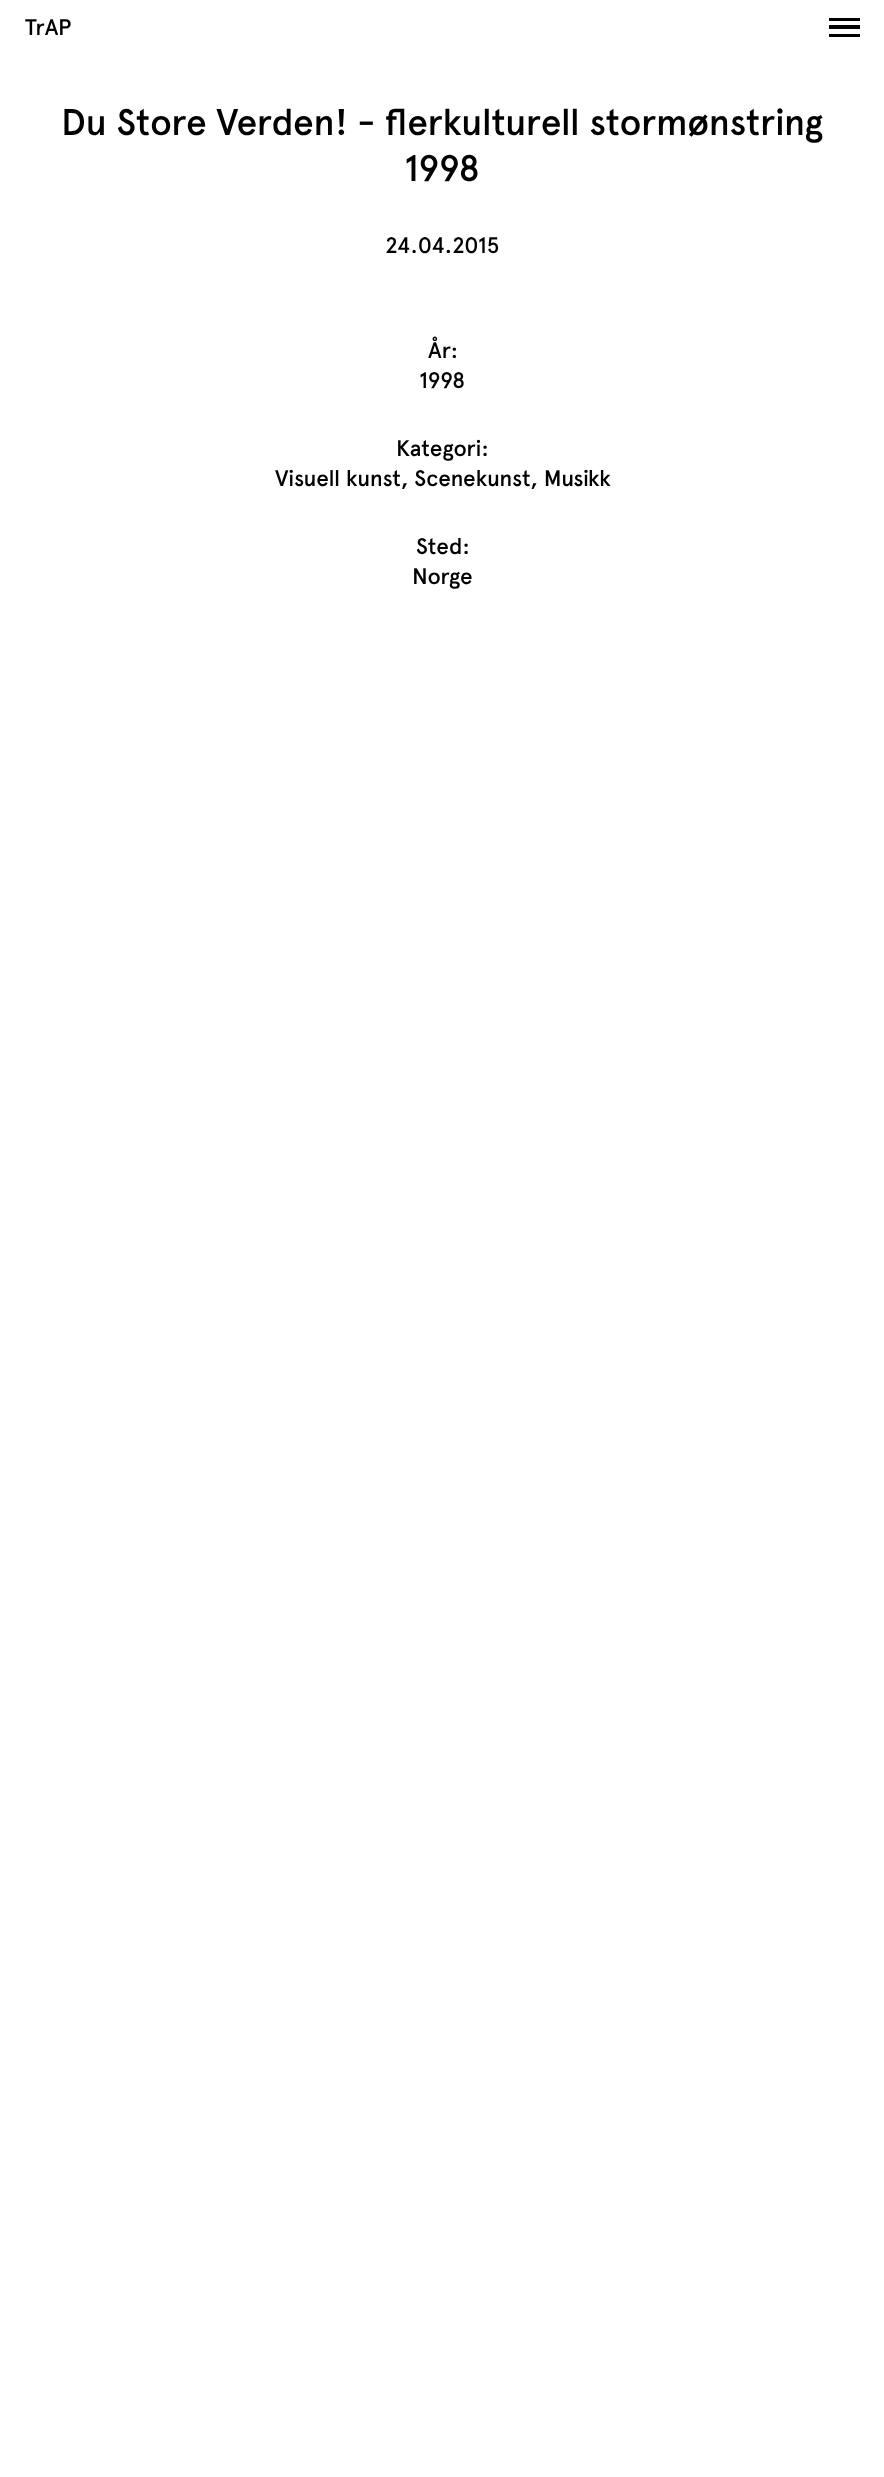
<?xml version="1.0" encoding="UTF-8"?>
<svg xmlns="http://www.w3.org/2000/svg" xmlns:xlink="http://www.w3.org/1999/xlink" width="884" height="2477">
  <rect width="100%" height="100%" fill="#ffffff" />
  <rect x="829" y="18" width="31" height="3" fill="#000000" />
  <rect x="829" y="25" width="31" height="4" fill="#000000" />
  <rect x="829" y="34" width="31" height="3" fill="#000000" />
  <text x="25" y="35" style="font-family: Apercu; font-size: 22.5px; font-weight: 500; fill: #000000">TrAP</text>
  <text x="61" y="135" style="font-family: Apercu; font-size: 37.1px; font-weight: 500; fill: #000000">Du Store Verden! - flerkulturell stormønstring</text>
  <text x="404" y="181" style="font-family: Apercu; font-size: 37.1px; font-weight: 500; fill: #000000">1998</text>
  <text x="385" y="253" style="font-family: Apercu; font-size: 22.5px; font-weight: 500; fill: #000000">24.04.2015</text>
  <text x="428" y="358" style="font-family: Apercu; font-size: 22.5px; font-weight: 500; fill: #000000">År:</text>
  <text x="419" y="388" style="font-family: Apercu; font-size: 22.5px; font-weight: 500; fill: #000000">1998</text>
  <text x="396" y="456" style="font-family: Apercu; font-size: 22.5px; font-weight: 500; fill: #000000">Kategori:</text>
  <text x="275" y="486" style="font-family: Apercu; font-size: 22.5px; font-weight: 500; fill: #000000">Visuell kunst, Scenekunst, Musikk</text>
  <text x="416" y="554" style="font-family: Apercu; font-size: 22.5px; font-weight: 500; fill: #000000">Sted:</text>
  <text x="412" y="584" style="font-family: Apercu; font-size: 22.5px; font-weight: 500; fill: #000000">Norge</text>
</svg>
